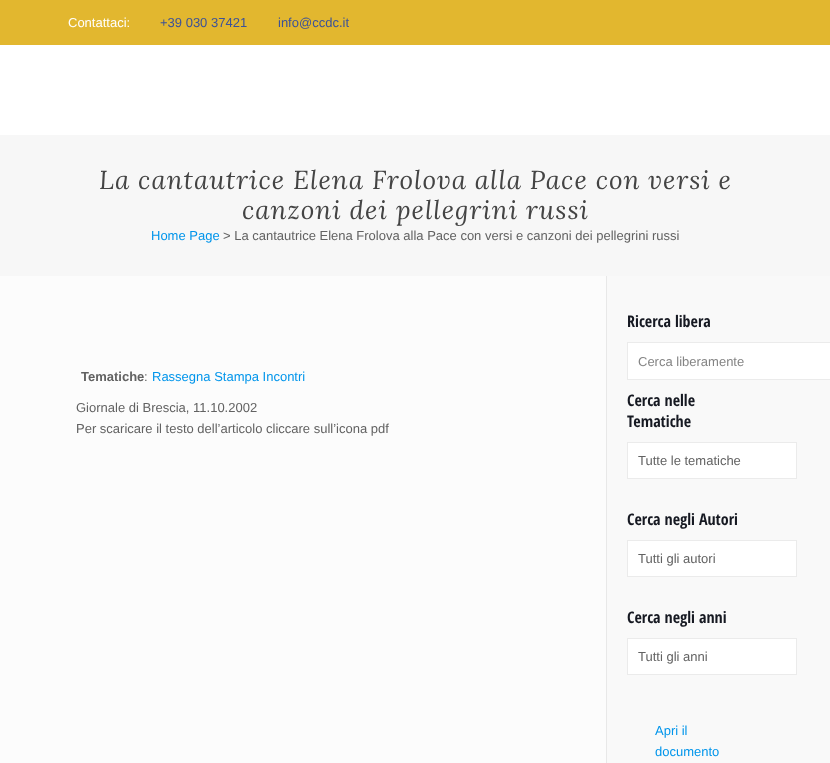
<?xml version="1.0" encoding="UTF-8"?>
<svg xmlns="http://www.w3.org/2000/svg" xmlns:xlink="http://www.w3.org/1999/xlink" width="830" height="763">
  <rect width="100%" height="100%" fill="#fcfcfc" />
  <rect width="830" height="45" fill="#e2b72f" />
  <rect y="45" width="830" height="90" fill="#ffffff" />
  <rect y="135" width="830" height="141" fill="#f7f7f7" />
  <rect x="606" y="276" width="1" height="487" fill="#e8e8e8" />
  <rect x="607" y="276" width="223" height="487" fill="#f9f9f9" />
  <rect x="627.5" y="342.5" width="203" height="37" fill="#ffffff" stroke="#ebebeb" />
  <rect x="627.5" y="442.5" width="169" height="36" fill="#ffffff" stroke="#ebebeb" />
  <rect x="627.5" y="540.5" width="169" height="36" fill="#ffffff" stroke="#ebebeb" />
  <rect x="627.5" y="638.5" width="169" height="36" fill="#ffffff" stroke="#ebebeb" />
  <text x="68" y="27" style="font-family: Liberation Sans; font-size: 13px; fill: #ffffff">Contattaci:</text>
  <text x="160" y="27" style="font-family: Liberation Sans; font-size: 13px; fill: #3c5298">+39 030 37421</text>
  <text x="278" y="27" style="font-family: Liberation Sans; font-size: 13px; fill: #3c5298">info@ccdc.it</text>
  <text x="99" y="189" style="font-family: Lora; font-size: 26px; font-style: italic; letter-spacing: 1px; fill: #444444">La cantautrice Elena Frolova alla Pace con versi e</text>
  <text x="242" y="219" style="font-family: Lora; font-size: 26px; font-style: italic; letter-spacing: 1px; fill: #444444">canzoni dei pellegrini russi</text>
  <text x="151" y="240" style="font-family: Liberation Sans; font-size: 13px; fill: #0095eb">Home Page</text>
  <text x="223" y="240" style="font-family: Liberation Sans; font-size: 13px; fill: #626262">&gt; La cantautrice Elena Frolova alla Pace con versi e canzoni dei pellegrini russi</text>
  <text x="81" y="381" style="font-family: Liberation Sans; font-size: 13px; font-weight: bold; fill: #626262">Tematiche</text>
  <text x="144" y="381" style="font-family: Liberation Sans; font-size: 13px; fill: #626262">:</text>
  <text x="152" y="381" style="font-family: Liberation Sans; font-size: 13px; fill: #0095eb">Rassegna Stampa Incontri</text>
  <text x="76" y="412" style="font-family: Liberation Sans; font-size: 13px; fill: #626262">Giornale di Brescia, 11.10.2002</text>
  <text x="76" y="433" style="font-family: Liberation Sans; font-size: 13px; fill: #626262">Per scaricare il testo dell’articolo cliccare sull’icona pdf</text>
  <text x="627" y="327" style="font-family: Open Sans Condensed; font-size: 16px; font-weight: bold; fill: #161922">Ricerca libera</text>
  <text x="638" y="366" style="font-family: Liberation Sans; font-size: 13px; fill: #848484">Cerca liberamente</text>
  <text x="627" y="406" style="font-family: Open Sans Condensed; font-size: 16px; font-weight: bold; fill: #161922">Cerca nelle</text>
  <text x="627" y="427" style="font-family: Open Sans Condensed; font-size: 16px; font-weight: bold; fill: #161922">Tematiche</text>
  <text x="638" y="465" style="font-family: Liberation Sans; font-size: 13px; fill: #626262">Tutte le tematiche</text>
  <text x="627" y="525" style="font-family: Open Sans Condensed; font-size: 16px; font-weight: bold; fill: #161922">Cerca negli Autori</text>
  <text x="638" y="563" style="font-family: Liberation Sans; font-size: 13px; fill: #626262">Tutti gli autori</text>
  <text x="627" y="623" style="font-family: Open Sans Condensed; font-size: 16px; font-weight: bold; fill: #161922">Cerca negli anni</text>
  <text x="638" y="661" style="font-family: Liberation Sans; font-size: 13px; fill: #626262">Tutti gli anni</text>
  <text x="655" y="735" style="font-family: Liberation Sans; font-size: 13px; fill: #0095eb">Apri il</text>
  <text x="655" y="756" style="font-family: Liberation Sans; font-size: 13px; fill: #0095eb">documento</text>
</svg>
